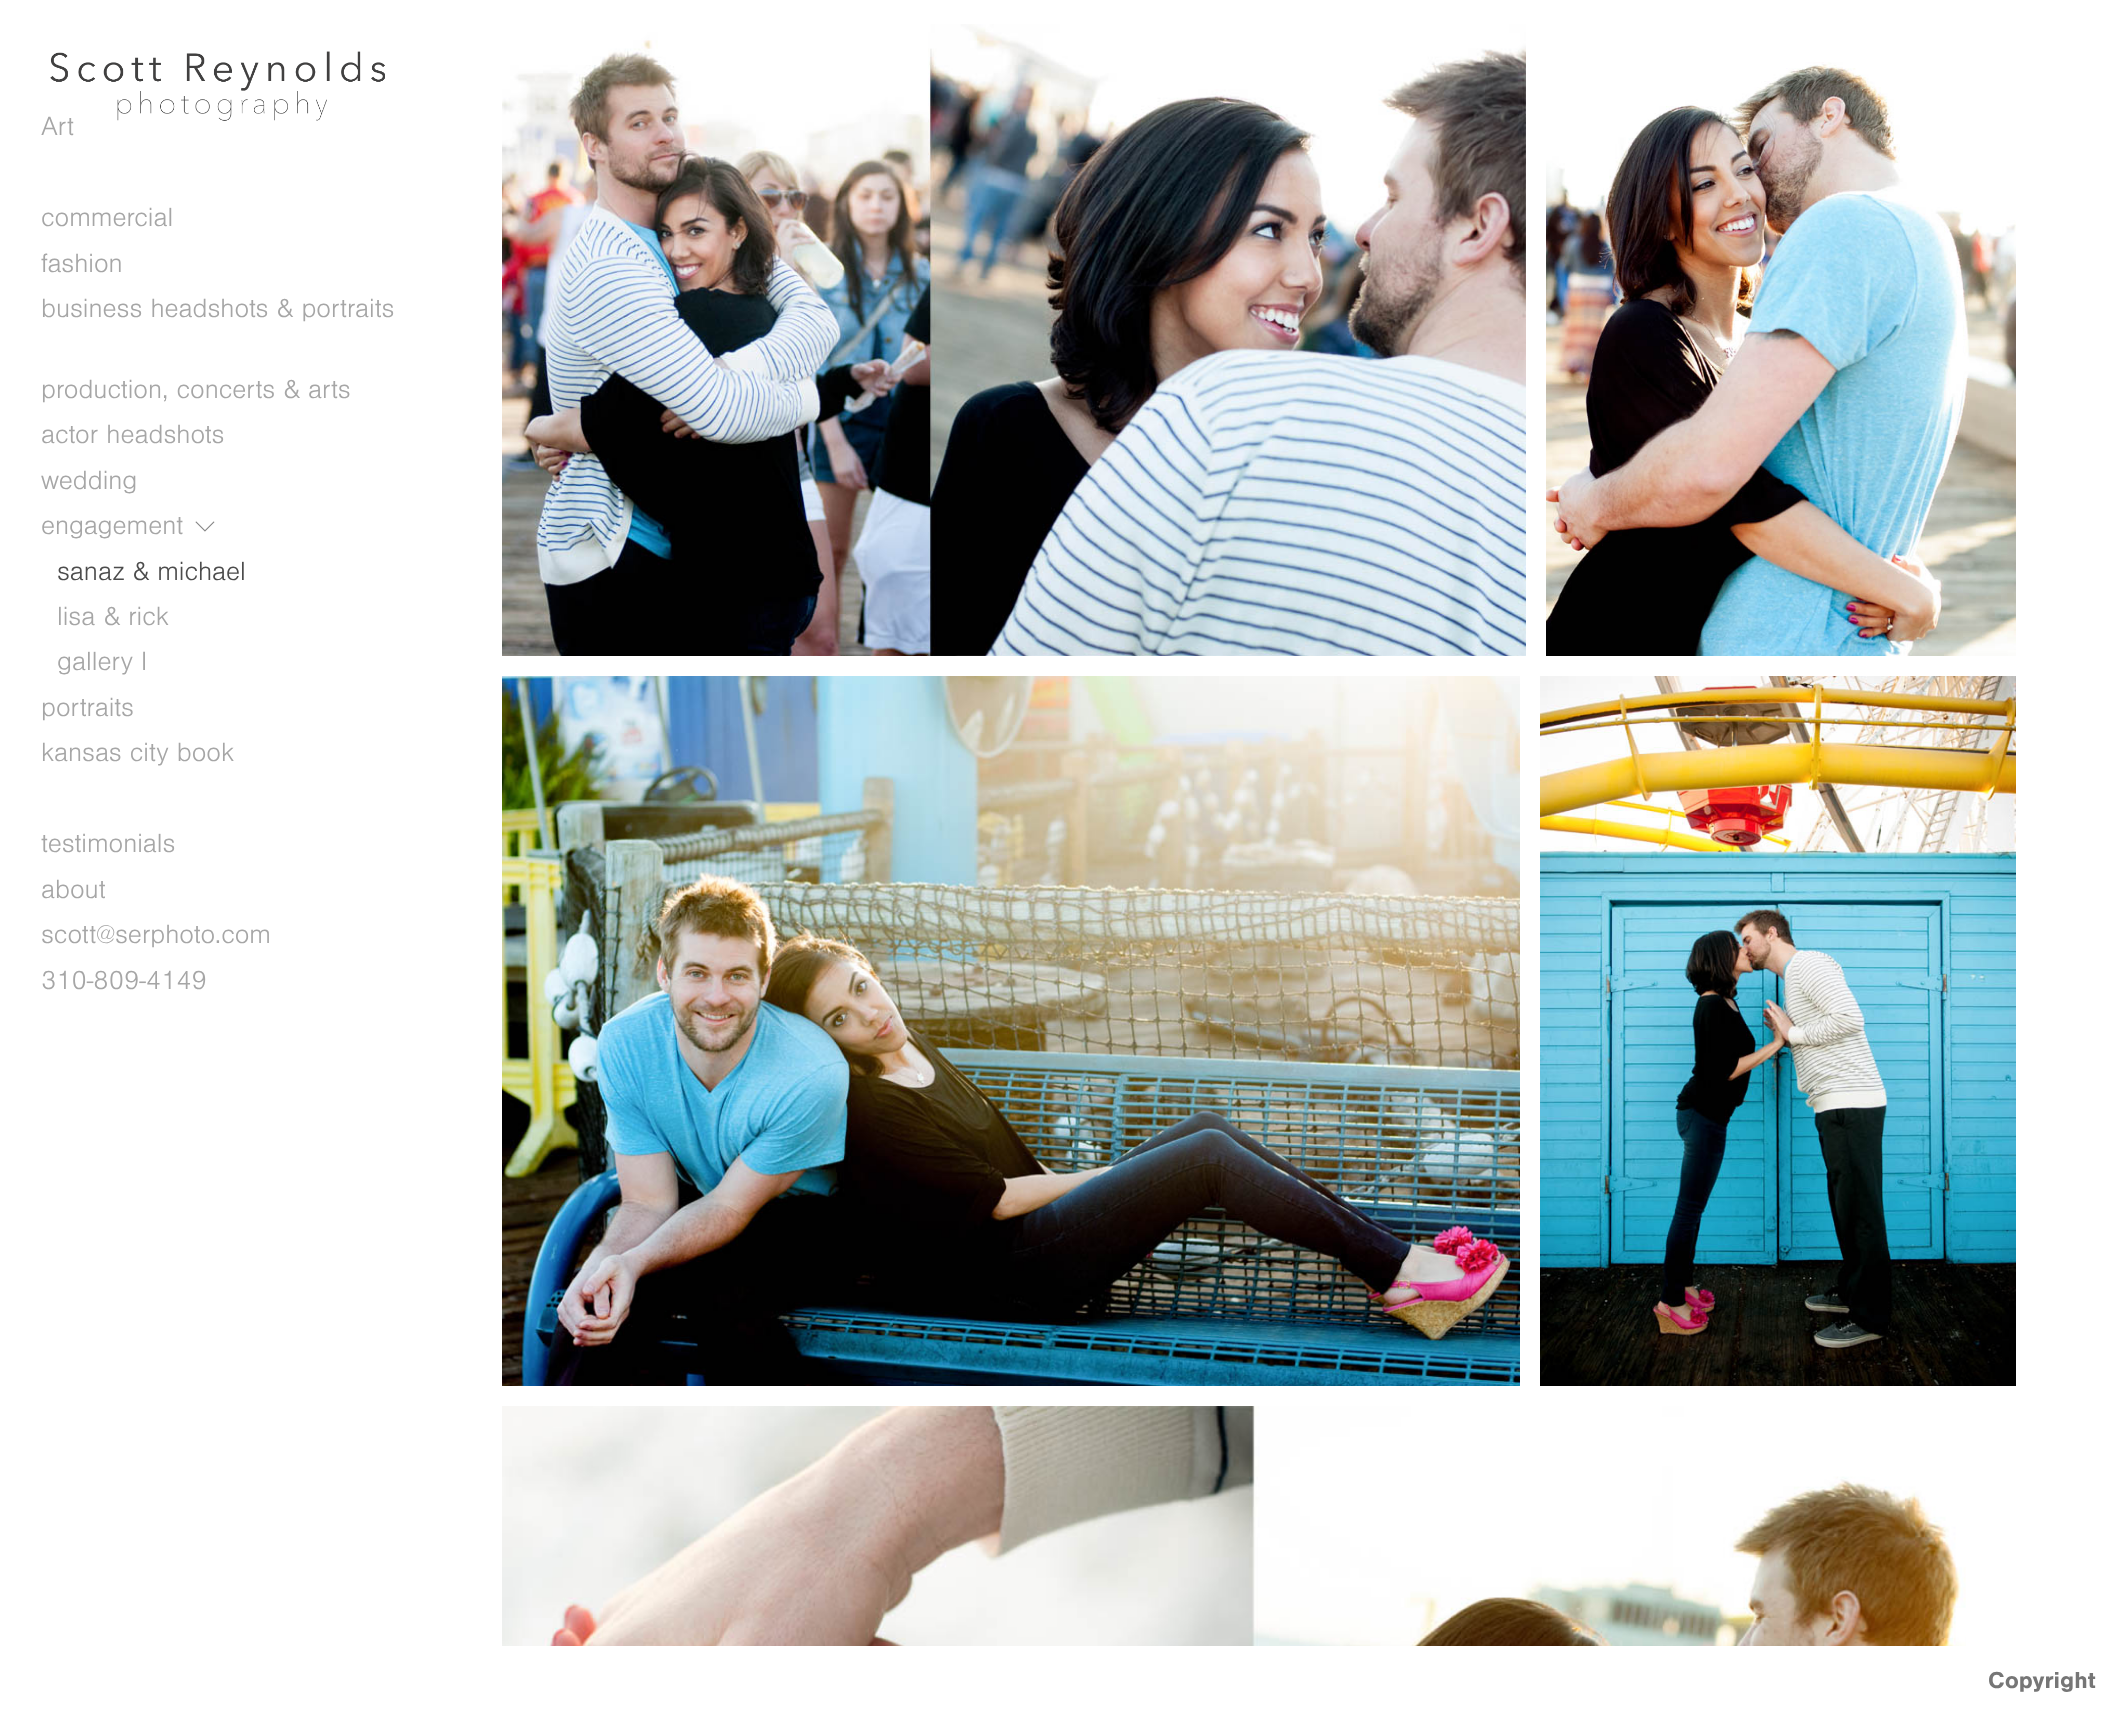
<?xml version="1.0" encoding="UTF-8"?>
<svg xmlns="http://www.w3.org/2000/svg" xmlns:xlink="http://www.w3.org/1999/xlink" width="2116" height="1716">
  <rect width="100%" height="100%" fill="#ffffff" />
  <image x="50" y="51" width="335" height="70" xlink:href="image1.png" />
  <image x="195" y="521" width="20" height="11" xlink:href="image2.png" />
  <image x="502" y="24" width="1024" height="632" xlink:href="image3.png" />
  <image x="1546" y="62" width="470" height="594" xlink:href="image4.png" />
  <image x="502" y="676" width="1018" height="710" xlink:href="image5.png" />
  <image x="1540" y="676" width="476" height="710" xlink:href="image6.png" />
  <image x="502" y="1406" width="1464" height="240" xlink:href="image7.png" />
  <text x="41" y="135" style="font-family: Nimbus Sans; font-size: 27.25px; font-weight: 300; fill: #a6a6a6">Art</text>
  <text x="41" y="226" style="font-family: Nimbus Sans; font-size: 27.25px; font-weight: 300; fill: #a6a6a6">commercial</text>
  <text x="41" y="272" style="font-family: Nimbus Sans; font-size: 27.25px; font-weight: 300; fill: #a6a6a6">fashion</text>
  <text x="41" y="317" style="font-family: Nimbus Sans; font-size: 27.25px; font-weight: 300; fill: #a6a6a6">business headshots &amp; portraits</text>
  <text x="41" y="398" style="font-family: Nimbus Sans; font-size: 27.25px; font-weight: 300; fill: #a6a6a6">production, concerts &amp; arts</text>
  <text x="41" y="443" style="font-family: Nimbus Sans; font-size: 27.25px; font-weight: 300; fill: #a6a6a6">actor headshots</text>
  <text x="41" y="489" style="font-family: Nimbus Sans; font-size: 27.25px; font-weight: 300; fill: #a6a6a6">wedding</text>
  <text x="41" y="534" style="font-family: Nimbus Sans; font-size: 27.25px; font-weight: 300; fill: #a6a6a6">engagement</text>
  <text x="57" y="580" style="font-family: Nimbus Sans; font-size: 27.25px; font-weight: 300; fill: #4c4c4c">sanaz &amp; michael</text>
  <text x="57" y="625" style="font-family: Nimbus Sans; font-size: 27.25px; font-weight: 300; fill: #a6a6a6">lisa &amp; rick</text>
  <text x="57" y="670" style="font-family: Nimbus Sans; font-size: 27.25px; font-weight: 300; fill: #a6a6a6">gallery I</text>
  <text x="41" y="716" style="font-family: Nimbus Sans; font-size: 27.25px; font-weight: 300; fill: #a6a6a6">portraits</text>
  <text x="41" y="761" style="font-family: Nimbus Sans; font-size: 27.25px; font-weight: 300; fill: #a6a6a6">kansas city book</text>
  <text x="41" y="852" style="font-family: Nimbus Sans; font-size: 27.25px; font-weight: 300; fill: #a6a6a6">testimonials</text>
  <text x="41" y="898" style="font-family: Nimbus Sans; font-size: 27.25px; font-weight: 300; fill: #a6a6a6">about</text>
  <text x="41" y="943" style="font-family: Nimbus Sans; font-size: 27.25px; font-weight: 300; fill: #a6a6a6">scott@serphoto.com</text>
  <text x="41" y="989" style="font-family: Nimbus Sans; font-size: 27.25px; font-weight: 300; fill: #a6a6a6">310-809-4149</text>
  <text x="1988" y="1688" style="font-family: Nimbus Sans; font-size: 24px; font-weight: bold; fill: #767676">Copyright</text>
</svg>
